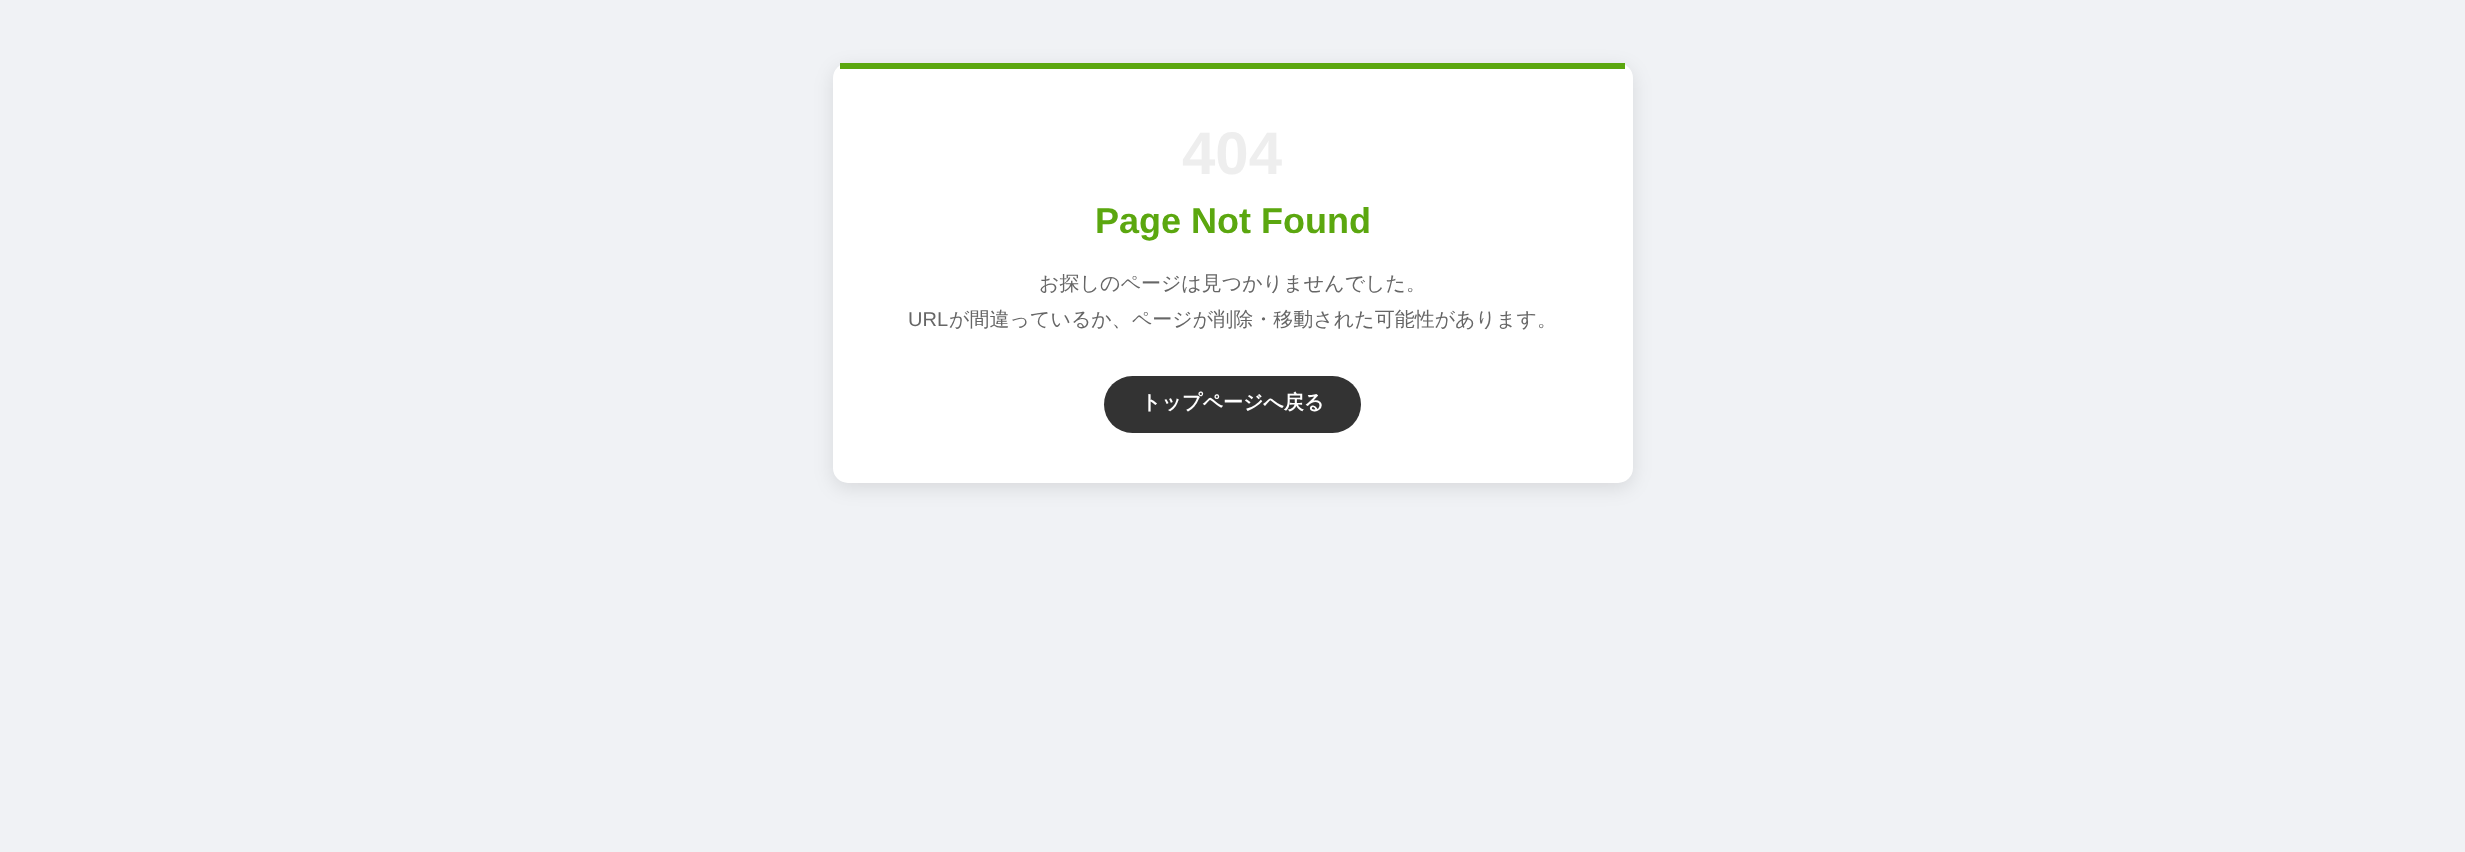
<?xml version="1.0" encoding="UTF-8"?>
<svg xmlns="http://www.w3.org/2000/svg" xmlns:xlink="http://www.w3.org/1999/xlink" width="2465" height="852">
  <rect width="100%" height="100%" fill="#f0f2f5" />
  <rect x="833" y="68" width="800" height="420" rx="15" fill="#000000" fill-opacity="0.1" filter="blur(9.5px)" />
  <rect x="833" y="63" width="800" height="420" rx="15" fill="#ffffff" />
  <rect x="840" y="63" width="785" height="6" fill="#5ba70f" />
  <rect x="1104" y="376" width="257" height="57" rx="28.5" fill="#333333" />
  <text x="1182" y="174" style="font-family: Liberation Sans; font-size: 60px; font-weight: bold; fill: #eeeeee">404</text>
  <text x="1095" y="233" style="font-family: Liberation Sans; font-size: 36px; font-weight: bold; fill: #5ba70f">Page Not Found</text>
  <text x="1039" y="290" style="font-family: WenQuanYi Zen Hei; font-size: 20px; font-weight: 500; fill: #666666">お探しのページは見つかりませんでした。</text>
  <text x="908" y="326" style="font-family: Liberation Sans; font-size: 20px; fill: #666666">URL</text>
  <text x="949" y="326" style="font-family: WenQuanYi Zen Hei; font-size: 20px; font-weight: 500; fill: #666666">が間違っているか、ページが削除・移動された可能性があります。</text>
  <text x="1141" y="409" style="font-family: WenQuanYi Zen Hei; font-size: 20px; font-weight: bold; fill: #ffffff">トップページへ戻る</text>
</svg>
